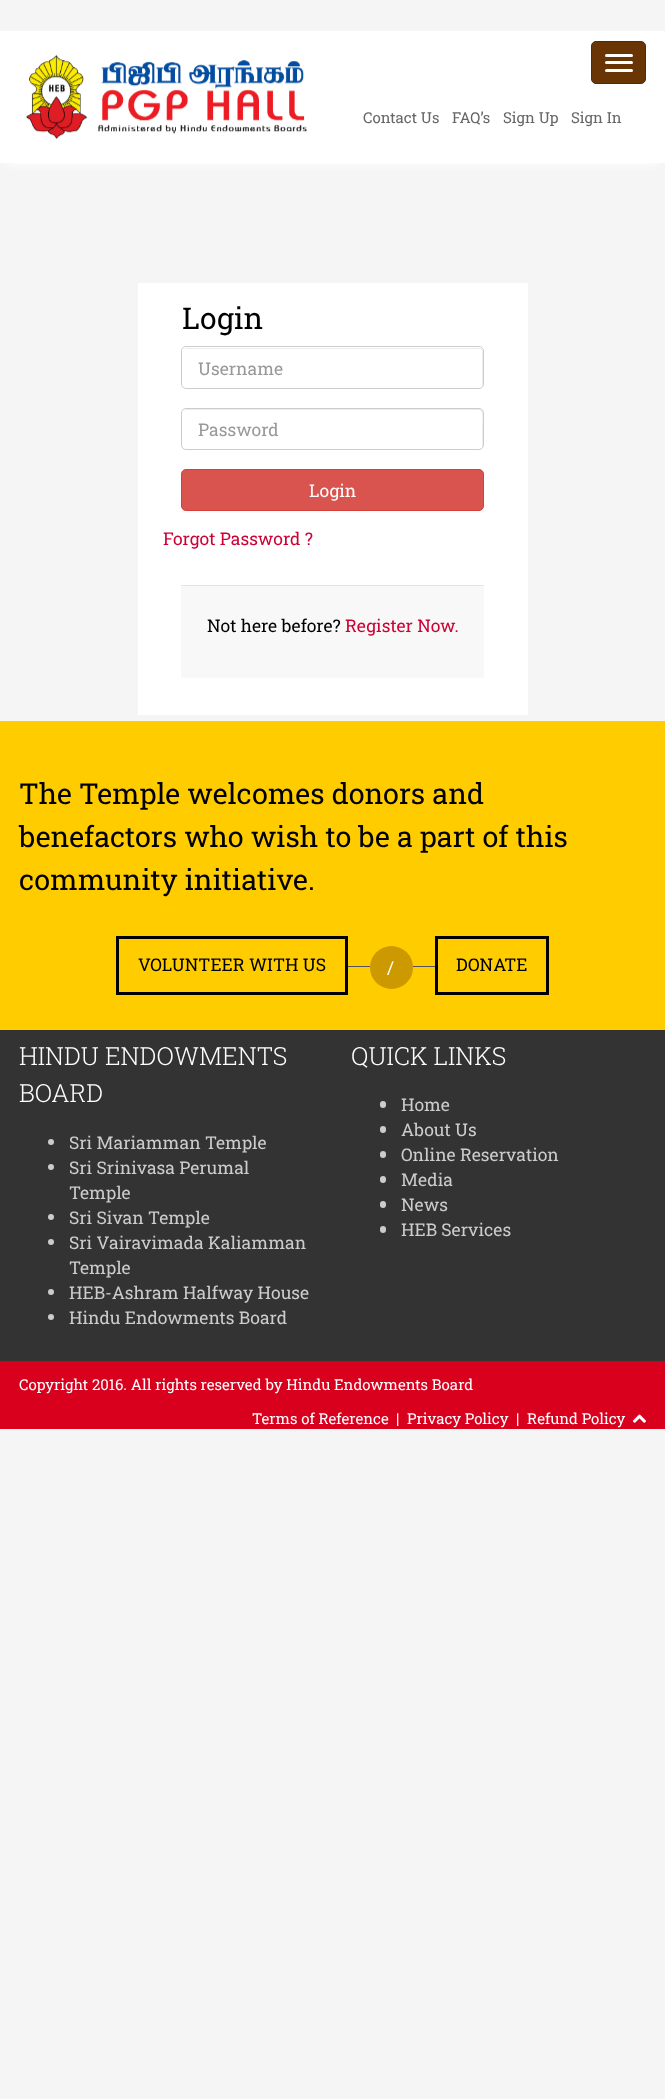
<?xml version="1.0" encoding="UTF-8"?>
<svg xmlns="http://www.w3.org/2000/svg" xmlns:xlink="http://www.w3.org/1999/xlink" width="665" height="2099">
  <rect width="100%" height="100%" fill="#f5f5f5" />
  <rect x="8" y="49" width="650" height="116" fill="#ffffff" filter="blur(4px)" />
  <rect y="31" width="665" height="132" fill="#ffffff" />
  <image x="26" y="54" width="281" height="86" xlink:href="image1.png" />
  <rect x="591.5" y="41.5" width="54" height="42" rx="4.5" fill="#693504" stroke="#333333" />
  <rect x="605" y="54" width="28" height="3" rx="1.5" fill="#ffffff" />
  <rect x="605" y="61" width="28" height="3" rx="1.5" fill="#ffffff" />
  <rect x="605" y="69" width="28" height="3" rx="1.5" fill="#ffffff" />
  <rect x="138" y="283" width="390" height="432" fill="#ffffff" />
  <path d="M 186 349 h 293 c 2 0 3 1 3 3 v 35 c 0 -1 1 -2 1 -3 v -32 c 0 -2 -2 -4 -4 -4 h -292 c -1 0 -2 1 -3 1 z" fill="#ececec" />
  <rect x="181.5" y="346.5" width="302" height="42" rx="4.5" fill="none" stroke="#cccccc" />
  <path d="M 186 410 h 293 c 5 0 3 13 3 15 v 23 c 0 -1 1 -2 1 -3 v -32 c 0 -2 -2 -4 -4 -4 h -292 c -1 0 -3 1 -3 2 z" fill="#ececec" />
  <rect x="181.5" y="408.5" width="302" height="41" rx="4.5" fill="none" stroke="#cccccc" />
  <rect x="181.5" y="469.5" width="302" height="41" rx="4.5" fill="#d9534f" stroke="#d43f3a" />
  <rect x="181" y="586" width="303" height="92" fill="#f8f8f8" />
  <rect x="181" y="585" width="303" height="1" fill="#e5e5e5" />
  <rect y="721" width="665" height="309" fill="#ffcc00" />
  <rect x="117.5" y="937.5" width="229" height="56" fill="none" stroke="#000000" stroke-width="3" />
  <rect x="348" y="966" width="22" height="1" fill="#54525e" />
  <circle cx="391.5" cy="967.5" r="21.5" fill="#cc9900" />
  <rect x="413" y="966" width="22" height="1" fill="#54525e" />
  <rect x="436.5" y="937.5" width="111" height="56" fill="none" stroke="#000000" stroke-width="3" />
  <rect y="1030" width="665" height="331" fill="#333333" />
  <circle cx="51" cy="1142" r="3" fill="#cccccc" />
  <circle cx="51" cy="1167" r="3" fill="#cccccc" />
  <circle cx="51" cy="1217" r="3" fill="#cccccc" />
  <circle cx="51" cy="1242" r="3" fill="#cccccc" />
  <circle cx="51" cy="1292" r="3" fill="#cccccc" />
  <circle cx="51" cy="1317" r="3" fill="#cccccc" />
  <rect x="380" y="1101" width="6" height="7" rx="3" fill="#cccccc" />
  <rect x="380" y="1126" width="6" height="7" rx="3" fill="#cccccc" />
  <rect x="380" y="1151" width="6" height="7" rx="3" fill="#cccccc" />
  <rect x="380" y="1176" width="6" height="7" rx="3" fill="#cccccc" />
  <rect x="380" y="1201" width="6" height="7" rx="3" fill="#cccccc" />
  <rect x="380" y="1226" width="6" height="7" rx="3" fill="#cccccc" />
  <rect y="1361" width="665" height="68" fill="#d9001d" />
  <image x="633" y="1414" width="13" height="9" xlink:href="image2.png" />
  <text x="363" y="123" style="font-family: Roboto Slab; font-size: 15px; fill: #666666">Contact Us</text>
  <text x="452" y="123" style="font-family: Roboto Slab; font-size: 15px; fill: #666666">FAQ’s</text>
  <text x="503" y="123" style="font-family: Roboto Slab; font-size: 15px; fill: #666666">Sign Up</text>
  <text x="571" y="123" style="font-family: Roboto Slab; font-size: 15px; fill: #666666">Sign In</text>
  <text x="182" y="329" style="font-family: Roboto Slab; font-size: 30px; fill: #000000">Login</text>
  <text x="198" y="375" style="font-family: Roboto Slab; font-size: 17.5px; fill: #999999">Username</text>
  <text x="198" y="436" style="font-family: Roboto Slab; font-size: 17.5px; fill: #999999">Password</text>
  <text x="309" y="497" style="font-family: Roboto Slab; font-size: 17.5px; fill: #ffffff">Login</text>
  <text x="163" y="545" style="font-family: Roboto Slab; font-size: 17.5px; fill: #cd0134">Forgot Password ?</text>
  <text x="207" y="632" style="font-family: Roboto Slab; font-size: 17.5px; fill: #000000">Not here before?</text>
  <text x="345" y="632" style="font-family: Roboto Slab; font-size: 17.5px; fill: #cd0134">Register Now.</text>
  <text x="19" y="804" style="font-family: Roboto Slab; font-size: 28.75px; fill: #000000">The Temple welcomes donors and</text>
  <text x="19" y="847" style="font-family: Roboto Slab; font-size: 28.75px; fill: #000000">benefactors who wish to be a part of this</text>
  <text x="19" y="890" style="font-family: Roboto Slab; font-size: 28.75px; fill: #000000">community initiative.</text>
  <text x="138" y="971" style="font-family: Roboto Slab; font-size: 17.5px; fill: #000000">VOLUNTEER WITH US</text>
  <text x="387" y="974" style="font-family: Roboto Slab; font-size: 17.5px; fill: #ffffff">/</text>
  <text x="456" y="971" style="font-family: Roboto Slab; font-size: 17.5px; fill: #000000">DONATE</text>
  <text x="19" y="1065" style="font-family: Roboto Slab; font-size: 25px; font-weight: 300; fill: #ffffff">HINDU ENDOWMENTS</text>
  <text x="19" y="1102" style="font-family: Roboto Slab; font-size: 25px; font-weight: 300; fill: #ffffff">BOARD</text>
  <text x="69" y="1149" style="font-family: Roboto Slab; font-size: 17.5px; fill: #cccccc">Sri Mariamman Temple</text>
  <text x="69" y="1174" style="font-family: Roboto Slab; font-size: 17.5px; fill: #cccccc">Sri Srinivasa Perumal</text>
  <text x="69" y="1199" style="font-family: Roboto Slab; font-size: 17.5px; fill: #cccccc">Temple</text>
  <text x="69" y="1224" style="font-family: Roboto Slab; font-size: 17.5px; fill: #cccccc">Sri Sivan Temple</text>
  <text x="69" y="1249" style="font-family: Roboto Slab; font-size: 17.5px; fill: #cccccc">Sri Vairavimada Kaliamman</text>
  <text x="69" y="1274" style="font-family: Roboto Slab; font-size: 17.5px; fill: #cccccc">Temple</text>
  <text x="69" y="1299" style="font-family: Roboto Slab; font-size: 17.5px; fill: #cccccc">HEB-Ashram Halfway House</text>
  <text x="69" y="1324" style="font-family: Roboto Slab; font-size: 17.5px; fill: #cccccc">Hindu Endowments Board</text>
  <text x="351" y="1065" style="font-family: Roboto Slab; font-size: 25px; font-weight: 300; fill: #ffffff">QUICK LINKS</text>
  <text x="401" y="1111" style="font-family: Roboto Slab; font-size: 17.5px; fill: #cccccc">Home</text>
  <text x="401" y="1136" style="font-family: Roboto Slab; font-size: 17.5px; fill: #cccccc">About Us</text>
  <text x="401" y="1161" style="font-family: Roboto Slab; font-size: 17.5px; fill: #cccccc">Online Reservation</text>
  <text x="401" y="1186" style="font-family: Roboto Slab; font-size: 17.5px; fill: #cccccc">Media</text>
  <text x="401" y="1211" style="font-family: Roboto Slab; font-size: 17.5px; fill: #cccccc">News</text>
  <text x="401" y="1236" style="font-family: Roboto Slab; font-size: 17.5px; fill: #cccccc">HEB Services</text>
  <text x="19" y="1390" style="font-family: Roboto Slab; font-size: 15px; fill: #ffffff">Copyright 2016. All rights reserved by Hindu Endowments Board</text>
  <text x="252" y="1424" style="font-family: Roboto Slab; font-size: 15px; fill: #ffffff">Terms of Reference</text>
  <text x="396" y="1424" style="font-family: Roboto Slab; font-size: 15px; fill: #ffffff">|</text>
  <text x="407" y="1424" style="font-family: Roboto Slab; font-size: 15px; fill: #ffffff">Privacy Policy</text>
  <text x="516" y="1424" style="font-family: Roboto Slab; font-size: 15px; fill: #ffffff">|</text>
  <text x="527" y="1424" style="font-family: Roboto Slab; font-size: 15px; fill: #ffffff">Refund Policy</text>
</svg>
